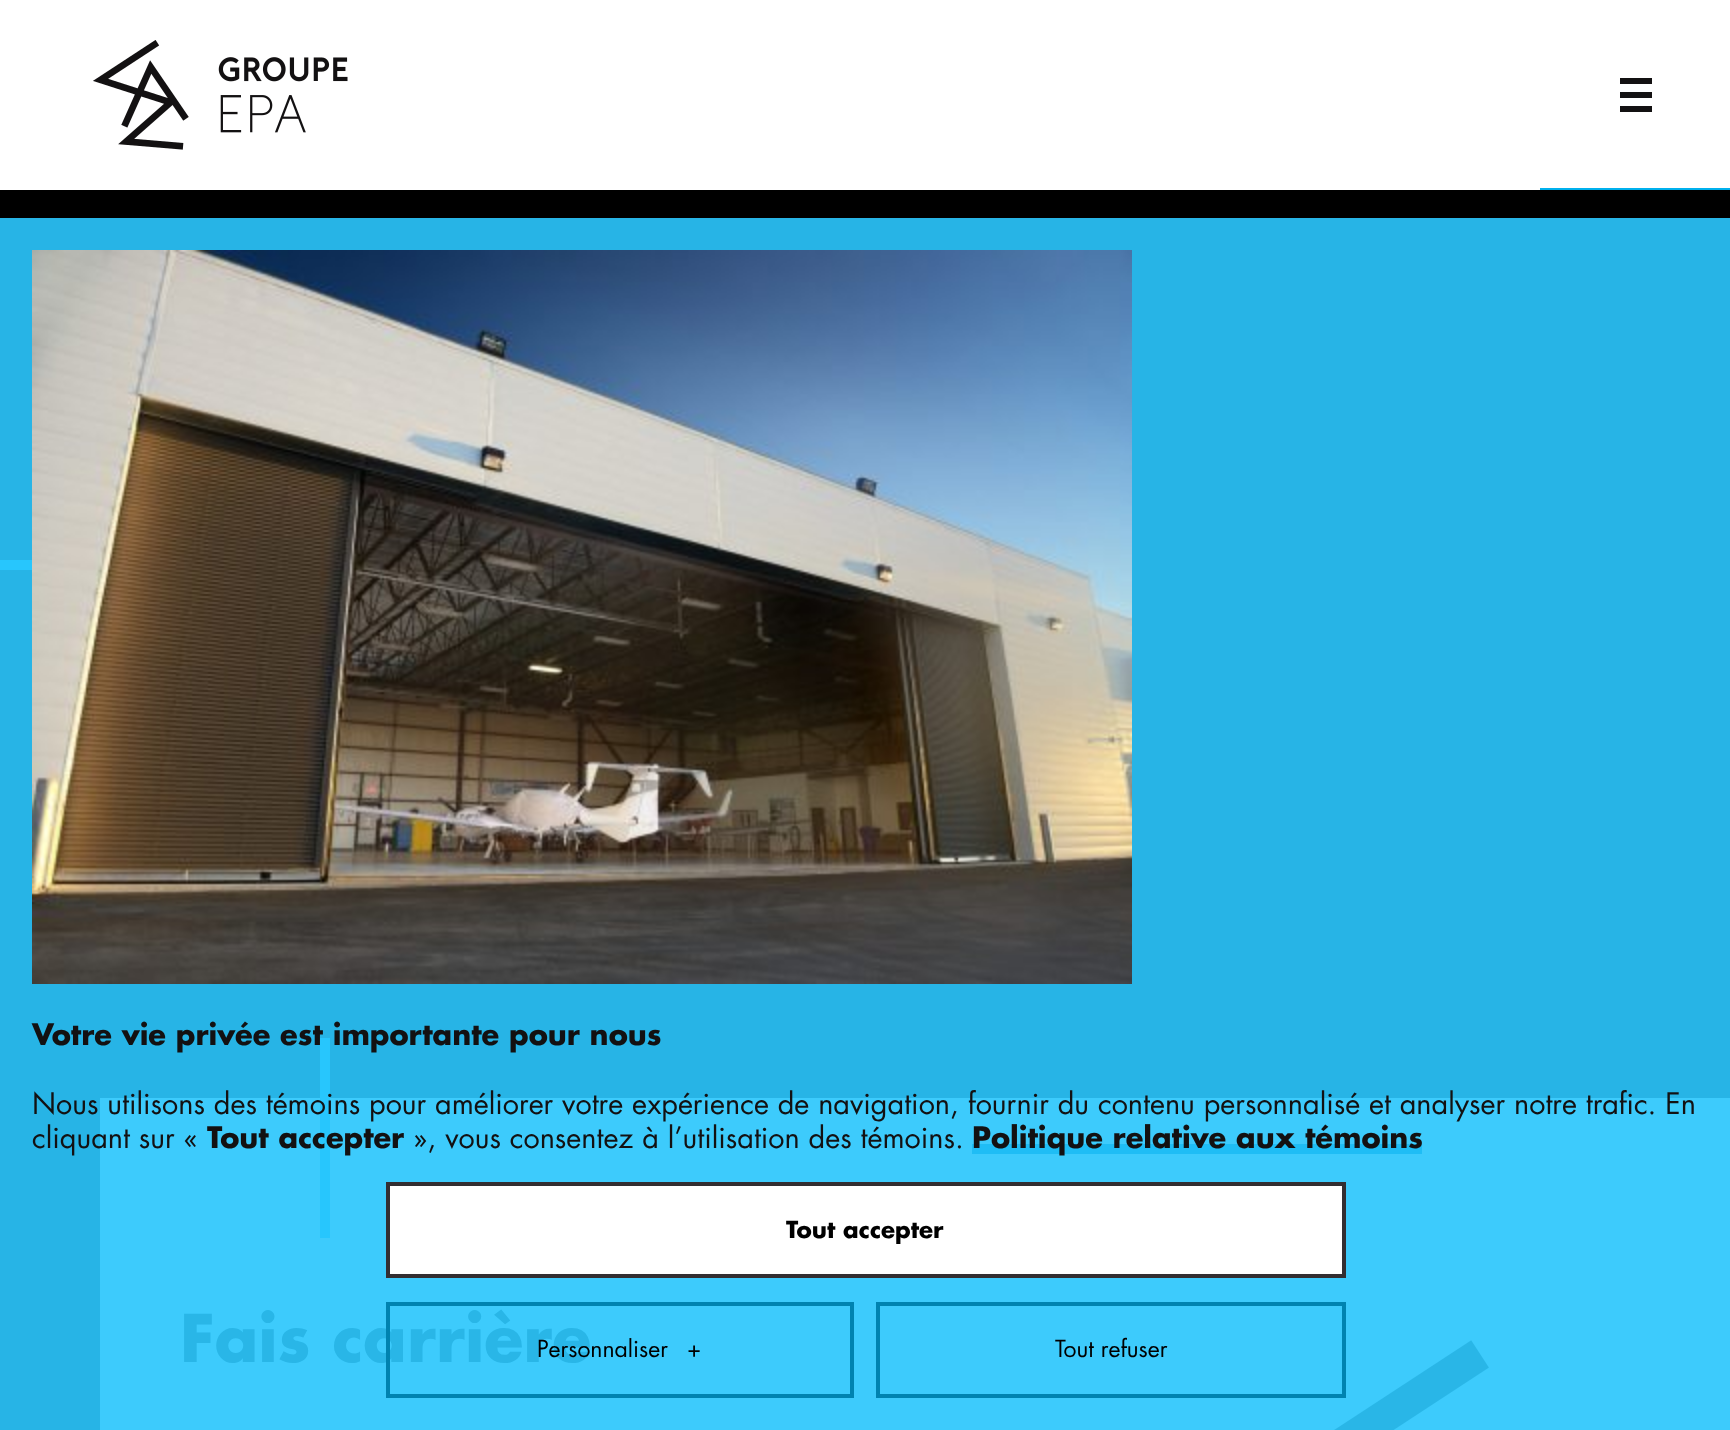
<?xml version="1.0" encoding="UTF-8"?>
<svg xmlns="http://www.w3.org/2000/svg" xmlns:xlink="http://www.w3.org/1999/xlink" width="1730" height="1430">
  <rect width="100%" height="100%" fill="#ffffff" />
  <image x="93" y="40" width="255" height="110" xlink:href="image1.png" />
  <rect x="1540" y="188" width="190" height="2" fill="#00b0ed" />
  <rect x="1620" y="78" width="32" height="6" fill="#131112" />
  <rect x="1620" y="92" width="32" height="6" fill="#131112" />
  <rect x="1620" y="106" width="32" height="6" fill="#131112" />
  <rect y="190" width="1730" height="28" fill="#000000" />
  <rect y="218" width="1730" height="1212" fill="#27b4e6" />
  <rect y="560" width="32" height="10" fill="#27c6fd" />
  <image x="32" y="250" width="1100" height="734" xlink:href="image2.png" />
  <rect x="100" y="1098" width="1630" height="332" fill="#3dcbfc" />
  <rect x="972" y="1144" width="450" height="10" fill="#1fbdf5" />
  <rect x="388" y="1184" width="956" height="92" fill="#ffffff" stroke="#332e31" stroke-width="4" />
  <image x="1334" y="1340" width="155" height="90" xlink:href="image3.png" />
  <rect x="878" y="1304" width="466" height="92" fill="none" stroke="#0083b0" stroke-width="4" />
  <rect x="320" y="1038" width="10" height="200" fill="#27c6fd" />
  <text x="32" y="1045" style="font-family: Futura; font-size: 28.8px; font-weight: bold; fill: #131112">Votre vie privée est importante pour nous</text>
  <text x="32" y="1114" style="font-family: Futura; font-size: 28.8px; fill: #131112">Nous utilisons des témoins pour améliorer votre expérience de navigation, fournir du contenu personnalisé et analyser notre trafic. En</text>
  <text x="32" y="1148" style="font-family: Futura; font-size: 28.8px; fill: #131112">cliquant sur «</text>
  <text x="207" y="1148" style="font-family: Futura; font-size: 28.8px; font-weight: bold; fill: #131112">Tout accepter</text>
  <text x="413" y="1148" style="font-family: Futura; font-size: 28.8px; fill: #131112">», vous consentez à l’utilisation des témoins.</text>
  <text x="972" y="1148" style="font-family: Futura; font-size: 28.8px; font-weight: bold; fill: #131112">Politique relative aux témoins</text>
  <text x="786" y="1238" style="font-family: Futura; font-size: 23px; font-weight: bold; fill: #000000">Tout accepter</text>
  <text x="1055" y="1357" style="font-family: Futura; font-size: 23px; fill: #000000">Tout refuser</text>
  <text x="180" y="1362" style="font-family: Futura; font-size: 64px; font-weight: bold; fill: #29b6e7">Fais carrière</text>
  <rect x="388" y="1304" width="464" height="92" fill="none" stroke="#0083b0" stroke-width="4" />
  <text x="687" y="1357" style="font-family: Futura; font-size: 23px; fill: #000000">+</text>
  <text x="537" y="1357" style="font-family: Futura; font-size: 23px; fill: #000000">Personnaliser</text>
</svg>
